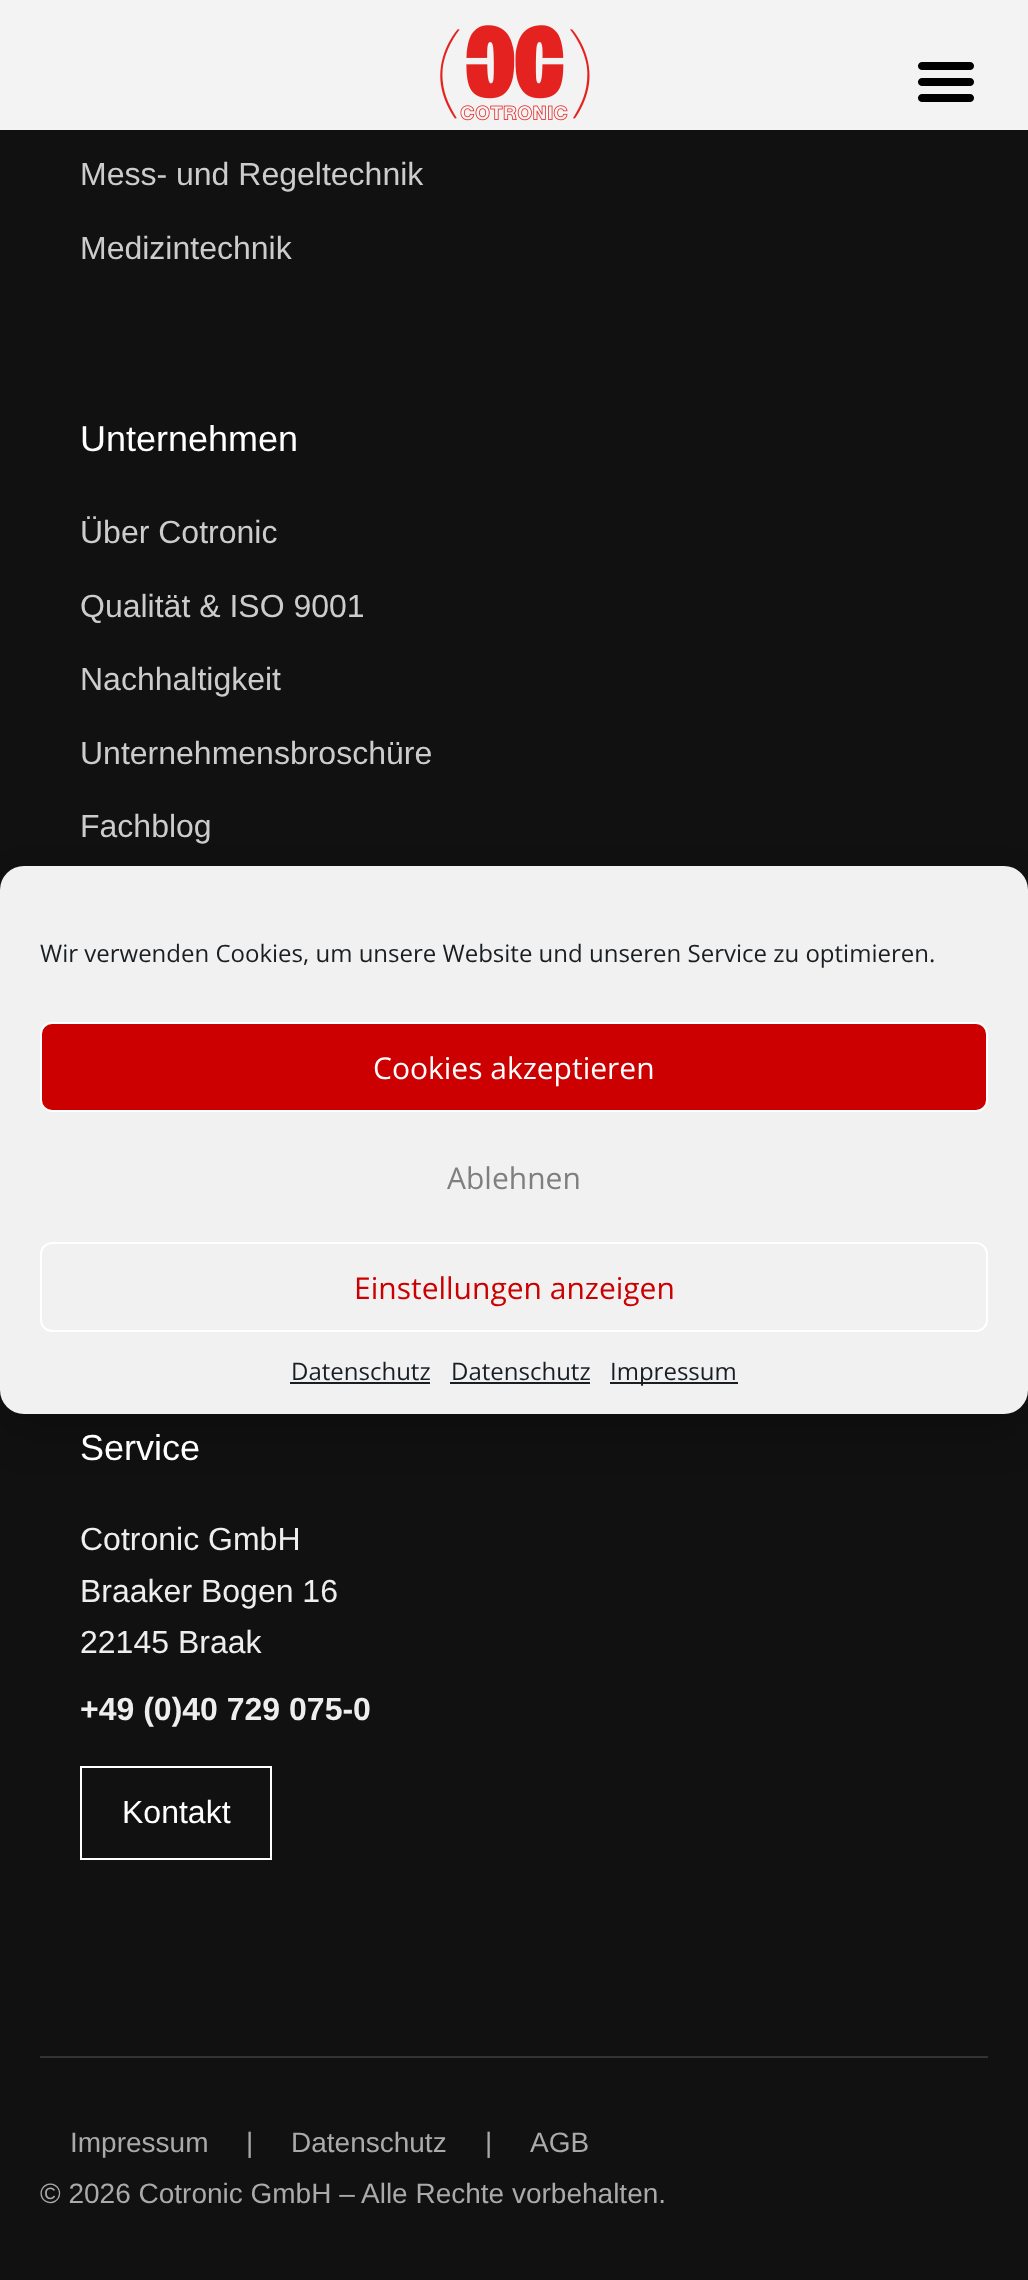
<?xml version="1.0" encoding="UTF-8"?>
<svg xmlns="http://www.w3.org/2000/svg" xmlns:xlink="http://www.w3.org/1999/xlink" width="1028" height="2280">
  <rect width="100%" height="100%" fill="#111111" />
  <rect width="1028" height="130" fill="#f3f3f3" />
  <image x="440" y="25" width="150" height="96" xlink:href="image1.png" />
  <image x="918" y="62" width="56" height="40" xlink:href="image2.png" />
  <rect x="81" y="1767" width="190" height="92" fill="none" stroke="#ffffff" stroke-width="2" />
  <rect x="40" y="2056" width="948" height="2" fill="#333333" />
  <rect y="886" width="1028" height="548" rx="24" fill="#000000" fill-opacity="0.19" filter="blur(20px)" />
  <rect y="866" width="1028" height="548" rx="24" fill="#f1f1f1" />
  <rect x="41" y="1023" width="946" height="88" rx="11" fill="#cc0000" stroke="#ffffff" stroke-width="2" />
  <rect x="41" y="1243" width="946" height="88" rx="11" fill="none" stroke="#ffffff" stroke-width="2" />
  <rect x="290" y="1382" width="140" height="2" fill="#191e23" />
  <rect x="450" y="1382" width="140" height="2" fill="#191e23" />
  <rect x="610" y="1382" width="128" height="2" fill="#191e23" />
  <text x="80" y="185" style="font-family: Liberation Sans; font-size: 32px; fill: #cccccc">Mess- und Regeltechnik</text>
  <text x="80" y="259" style="font-family: Liberation Sans; font-size: 32px; fill: #cccccc">Medizintechnik</text>
  <text x="80" y="451" style="font-family: Liberation Sans; font-size: 36px; fill: #ffffff">Unternehmen</text>
  <text x="80" y="543" style="font-family: Liberation Sans; font-size: 32px; fill: #cccccc">Über Cotronic</text>
  <text x="80" y="617" style="font-family: Liberation Sans; font-size: 32px; fill: #cccccc">Qualität &amp; ISO 9001</text>
  <text x="80" y="690" style="font-family: Liberation Sans; font-size: 32px; fill: #cccccc">Nachhaltigkeit</text>
  <text x="80" y="764" style="font-family: Liberation Sans; font-size: 32px; fill: #cccccc">Unternehmensbroschüre</text>
  <text x="80" y="837" style="font-family: Liberation Sans; font-size: 32px; fill: #cccccc">Fachblog</text>
  <text x="80" y="1460" style="font-family: Liberation Sans; font-size: 36px; fill: #ffffff">Service</text>
  <text x="80" y="1550" style="font-family: Liberation Sans; font-size: 32px; fill: #eeeeee">Cotronic GmbH</text>
  <text x="80" y="1602" style="font-family: Liberation Sans; font-size: 32px; fill: #eeeeee">Braaker Bogen 16</text>
  <text x="80" y="1653" style="font-family: Liberation Sans; font-size: 32px; fill: #eeeeee">22145 Braak</text>
  <text x="80" y="1720" style="font-family: Liberation Sans; font-size: 32px; font-weight: bold; fill: #eeeeee">+49 (0)40 729 075-0</text>
  <text x="122" y="1823" style="font-family: Liberation Sans; font-size: 32px; fill: #ffffff">Kontakt</text>
  <text x="70" y="2152" style="font-family: Liberation Sans; font-size: 28px; fill: #aaaaaa">Impressum</text>
  <text x="246" y="2152" style="font-family: Liberation Sans; font-size: 28px; fill: #aaaaaa">|</text>
  <text x="291" y="2152" style="font-family: Liberation Sans; font-size: 28px; fill: #aaaaaa">Datenschutz</text>
  <text x="485" y="2152" style="font-family: Liberation Sans; font-size: 28px; fill: #aaaaaa">|</text>
  <text x="530" y="2152" style="font-family: Liberation Sans; font-size: 28px; fill: #aaaaaa">AGB</text>
  <text x="40" y="2203" style="font-family: Liberation Sans; font-size: 28px; fill: #aaaaaa">© 2026 Cotronic GmbH – Alle Rechte vorbehalten.</text>
  <text x="40" y="962" style="font-family: Open Sans; font-size: 24px; fill: #191e23">Wir verwenden Cookies, um unsere Website und unseren Service zu optimieren.</text>
  <text x="373" y="1079" style="font-family: Open Sans; font-size: 30px; fill: #ffffff">Cookies akzeptieren</text>
  <text x="447" y="1189" style="font-family: Open Sans; font-size: 30px; fill: #7f7f7f">Ablehnen</text>
  <text x="354" y="1299" style="font-family: Open Sans; font-size: 30px; fill: #cc0000">Einstellungen anzeigen</text>
  <text x="291" y="1380" style="font-family: Open Sans; font-size: 24px; fill: #191e23">Datenschutz</text>
  <text x="451" y="1380" style="font-family: Open Sans; font-size: 24px; fill: #191e23">Datenschutz</text>
  <text x="610" y="1380" style="font-family: Open Sans; font-size: 24px; fill: #191e23">Impressum</text>
</svg>
